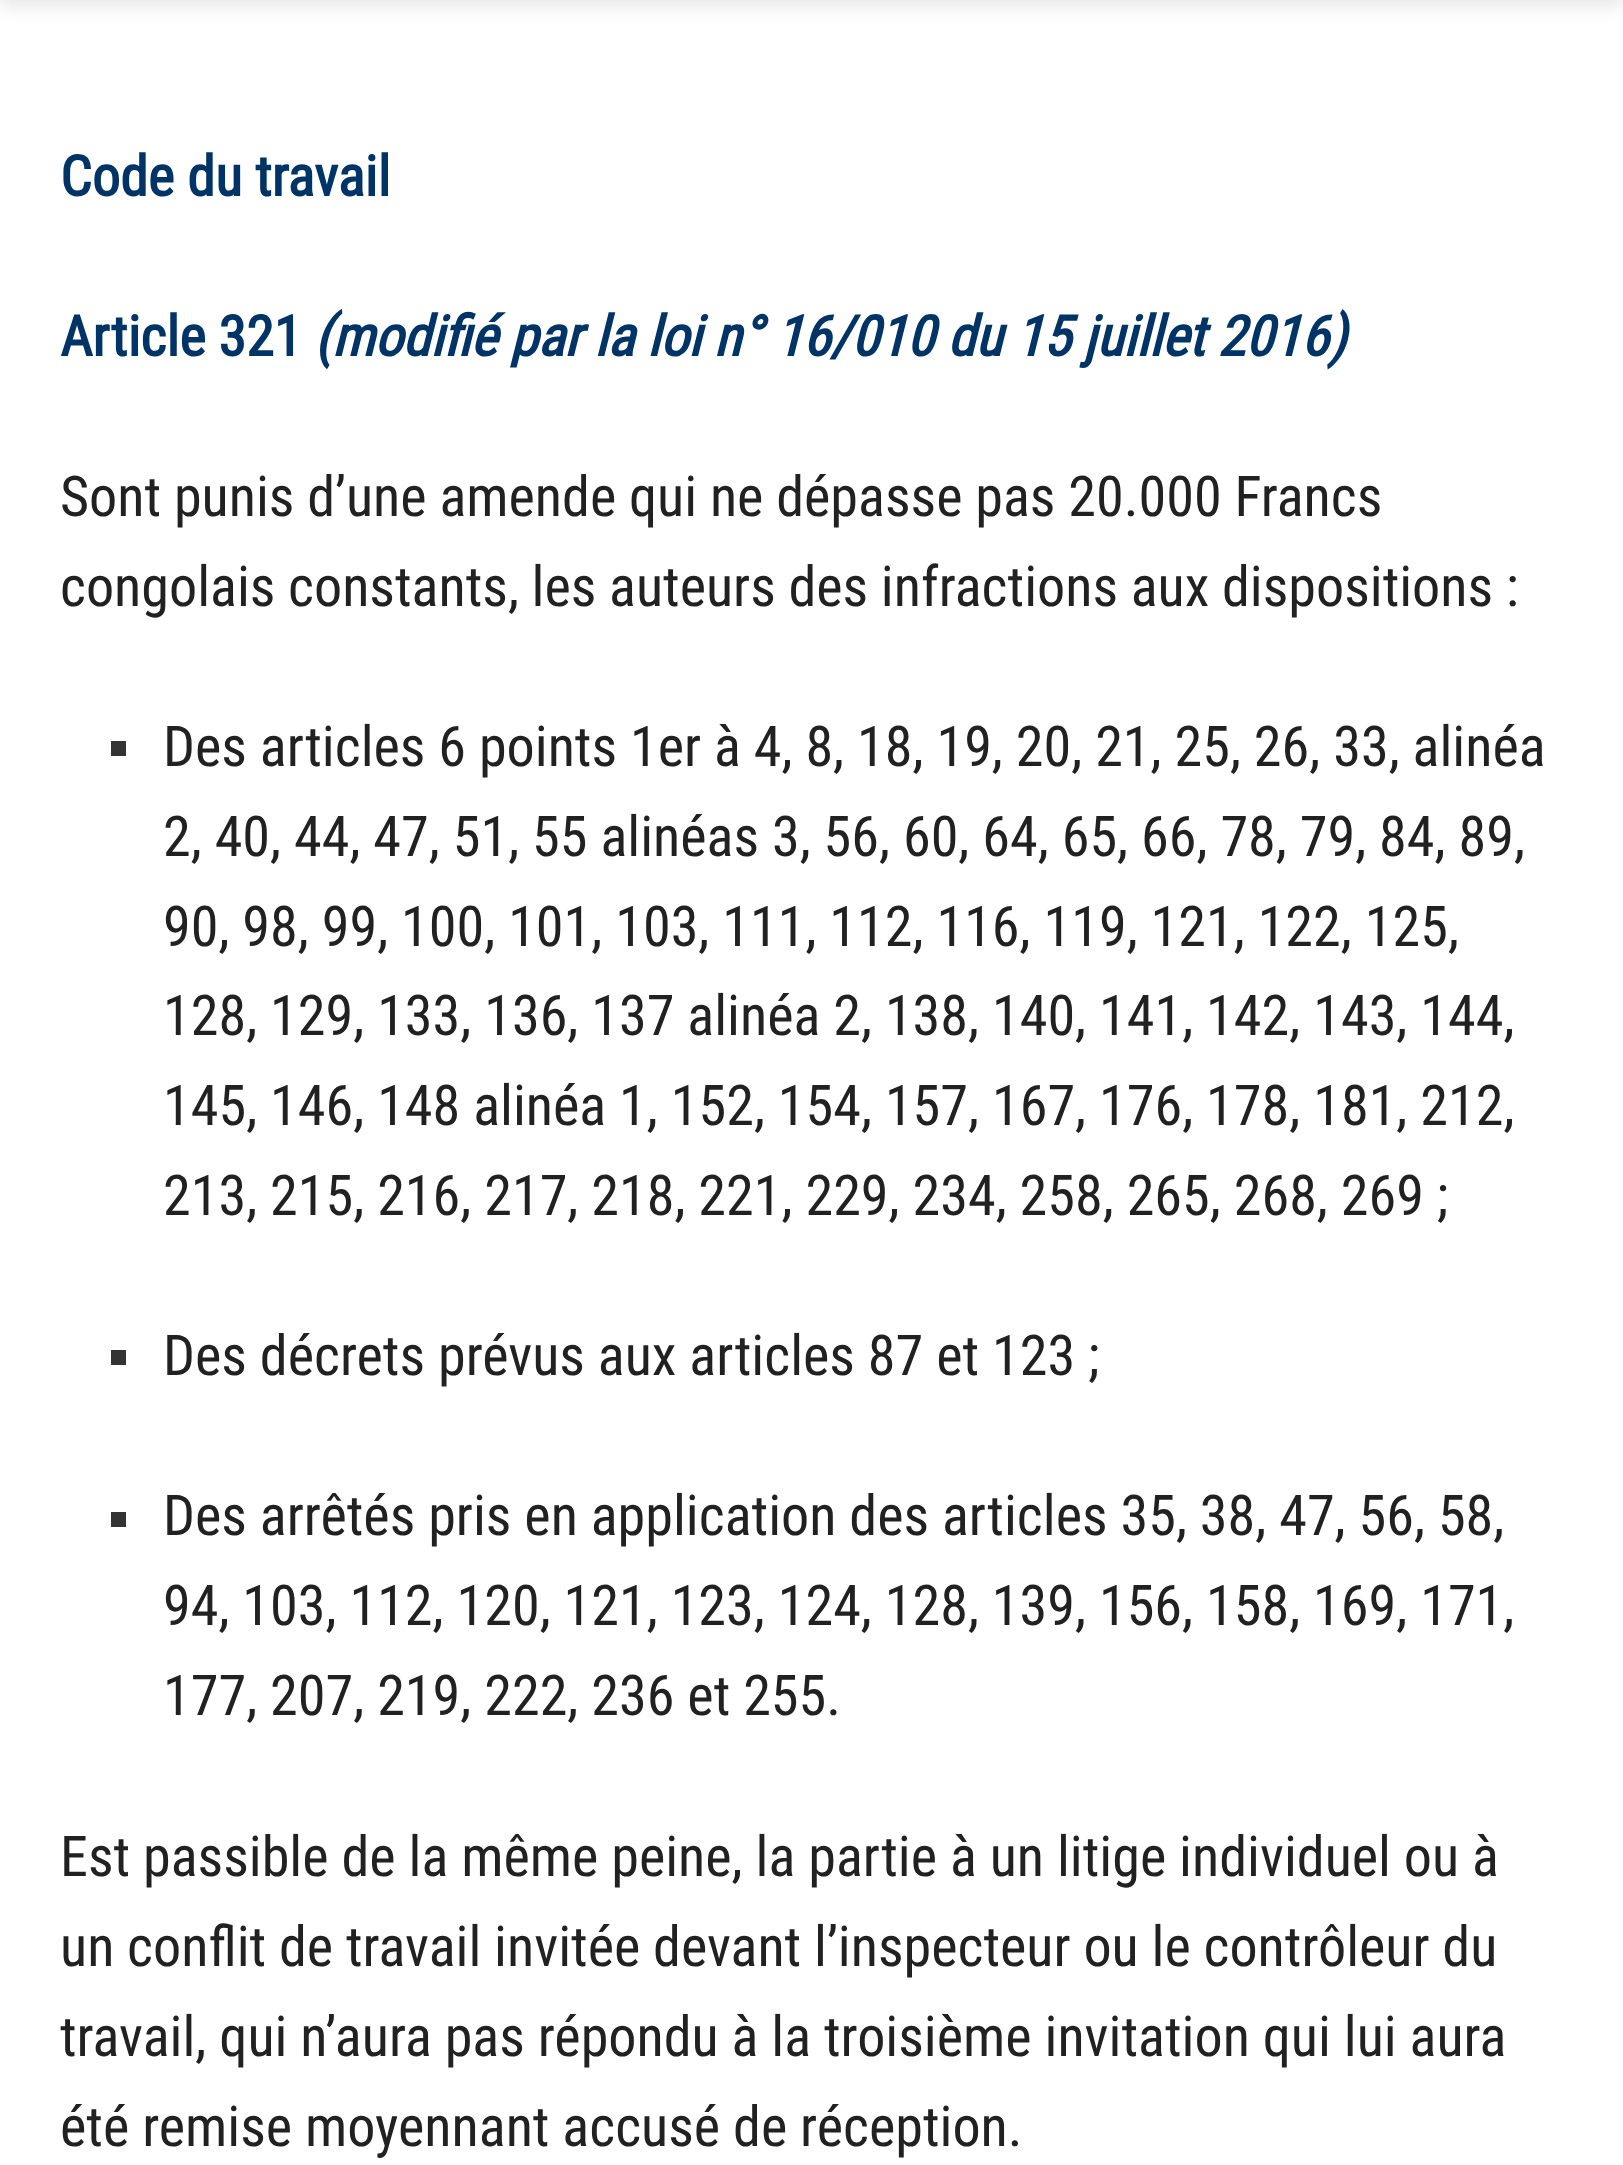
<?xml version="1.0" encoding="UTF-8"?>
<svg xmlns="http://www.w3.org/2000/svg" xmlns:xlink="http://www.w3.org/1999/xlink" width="1623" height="2165">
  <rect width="100%" height="100%" fill="#ffffff" />
  <rect y="-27" width="1623" height="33" fill="#000000" fill-opacity="0.1" filter="blur(9px)" />
  <rect x="111" y="741" width="15" height="15" fill="#333333" />
  <rect x="111" y="1350" width="15" height="15" fill="#333333" />
  <rect x="111" y="1512" width="15" height="15" fill="#333333" />
  <text x="60" y="196" style="font-family: Roboto Condensed; font-size: 56.15px; font-weight: bold; fill: #003366">Code du travail</text>
  <text x="60" y="356" style="font-family: Roboto Condensed; font-size: 56.15px; font-weight: bold; fill: #003366">Article 321</text>
  <text x="314" y="356" style="font-family: Roboto Condensed; font-size: 56.15px; font-weight: bold; font-style: italic; fill: #003366">(modifié par la loi n° 16/010 du 15 juillet 2016)</text>
  <text x="60" y="516" word-spacing="-0.1" style="font-family: Roboto Condensed; font-size: 56.15px; fill: #212121">Sont punis d’une amende qui ne dépasse pas 20.000 Francs</text>
  <text x="60" y="606" word-spacing="-0.25" style="font-family: Roboto Condensed; font-size: 56.15px; fill: #212121">congolais constants, les auteurs des infractions aux dispositions :</text>
  <text x="163" y="766" style="font-family: Roboto Condensed; font-size: 56.15px; fill: #212121">Des articles 6 points 1er à 4, 8, 18, 19, 20, 21, 25, 26, 33, alinéa</text>
  <text x="163" y="856" style="font-family: Roboto Condensed; font-size: 56.15px; fill: #212121">2, 40, 44, 47, 51, 55 alinéas 3, 56, 60, 64, 65, 66, 78, 79, 84, 89,</text>
  <text x="163" y="946" style="font-family: Roboto Condensed; font-size: 56.15px; fill: #212121">90, 98, 99, 100, 101, 103, 111, 112, 116, 119, 121, 122, 125,</text>
  <text x="163" y="1035" style="font-family: Roboto Condensed; font-size: 56.15px; fill: #212121">128, 129, 133, 136, 137 alinéa 2, 138, 140, 141, 142, 143, 144,</text>
  <text x="163" y="1125" style="font-family: Roboto Condensed; font-size: 56.15px; fill: #212121">145, 146, 148 alinéa 1, 152, 154, 157, 167, 176, 178, 181, 212,</text>
  <text x="163" y="1215" style="font-family: Roboto Condensed; font-size: 56.15px; fill: #212121">213, 215, 216, 217, 218, 221, 229, 234, 258, 265, 268, 269 ;</text>
  <text x="163" y="1375" style="font-family: Roboto Condensed; font-size: 56.15px; fill: #212121">Des décrets prévus aux articles 87 et 123 ;</text>
  <text x="163" y="1535" style="font-family: Roboto Condensed; font-size: 56.15px; fill: #212121">Des arrêtés pris en application des articles 35, 38, 47, 56, 58,</text>
  <text x="163" y="1625" style="font-family: Roboto Condensed; font-size: 56.15px; fill: #212121">94, 103, 112, 120, 121, 123, 124, 128, 139, 156, 158, 169, 171,</text>
  <text x="163" y="1715" style="font-family: Roboto Condensed; font-size: 56.15px; fill: #212121">177, 207, 219, 222, 236 et 255.</text>
  <text x="60" y="1876" style="font-family: Roboto Condensed; font-size: 56.15px; fill: #212121">Est passible de la même peine, la partie à un litige individuel ou à</text>
  <text x="60" y="1966" word-spacing="-0.1" style="font-family: Roboto Condensed; font-size: 56.15px; fill: #212121">un conflit de travail invitée devant l’inspecteur ou le contrôleur du</text>
  <text x="60" y="2056" style="font-family: Roboto Condensed; font-size: 56.15px; fill: #212121">travail, qui n’aura pas répondu à la troisième invitation qui lui aura</text>
  <text x="60" y="2146" style="font-family: Roboto Condensed; font-size: 56.15px; fill: #212121">été remise moyennant accusé de réception.</text>
</svg>
